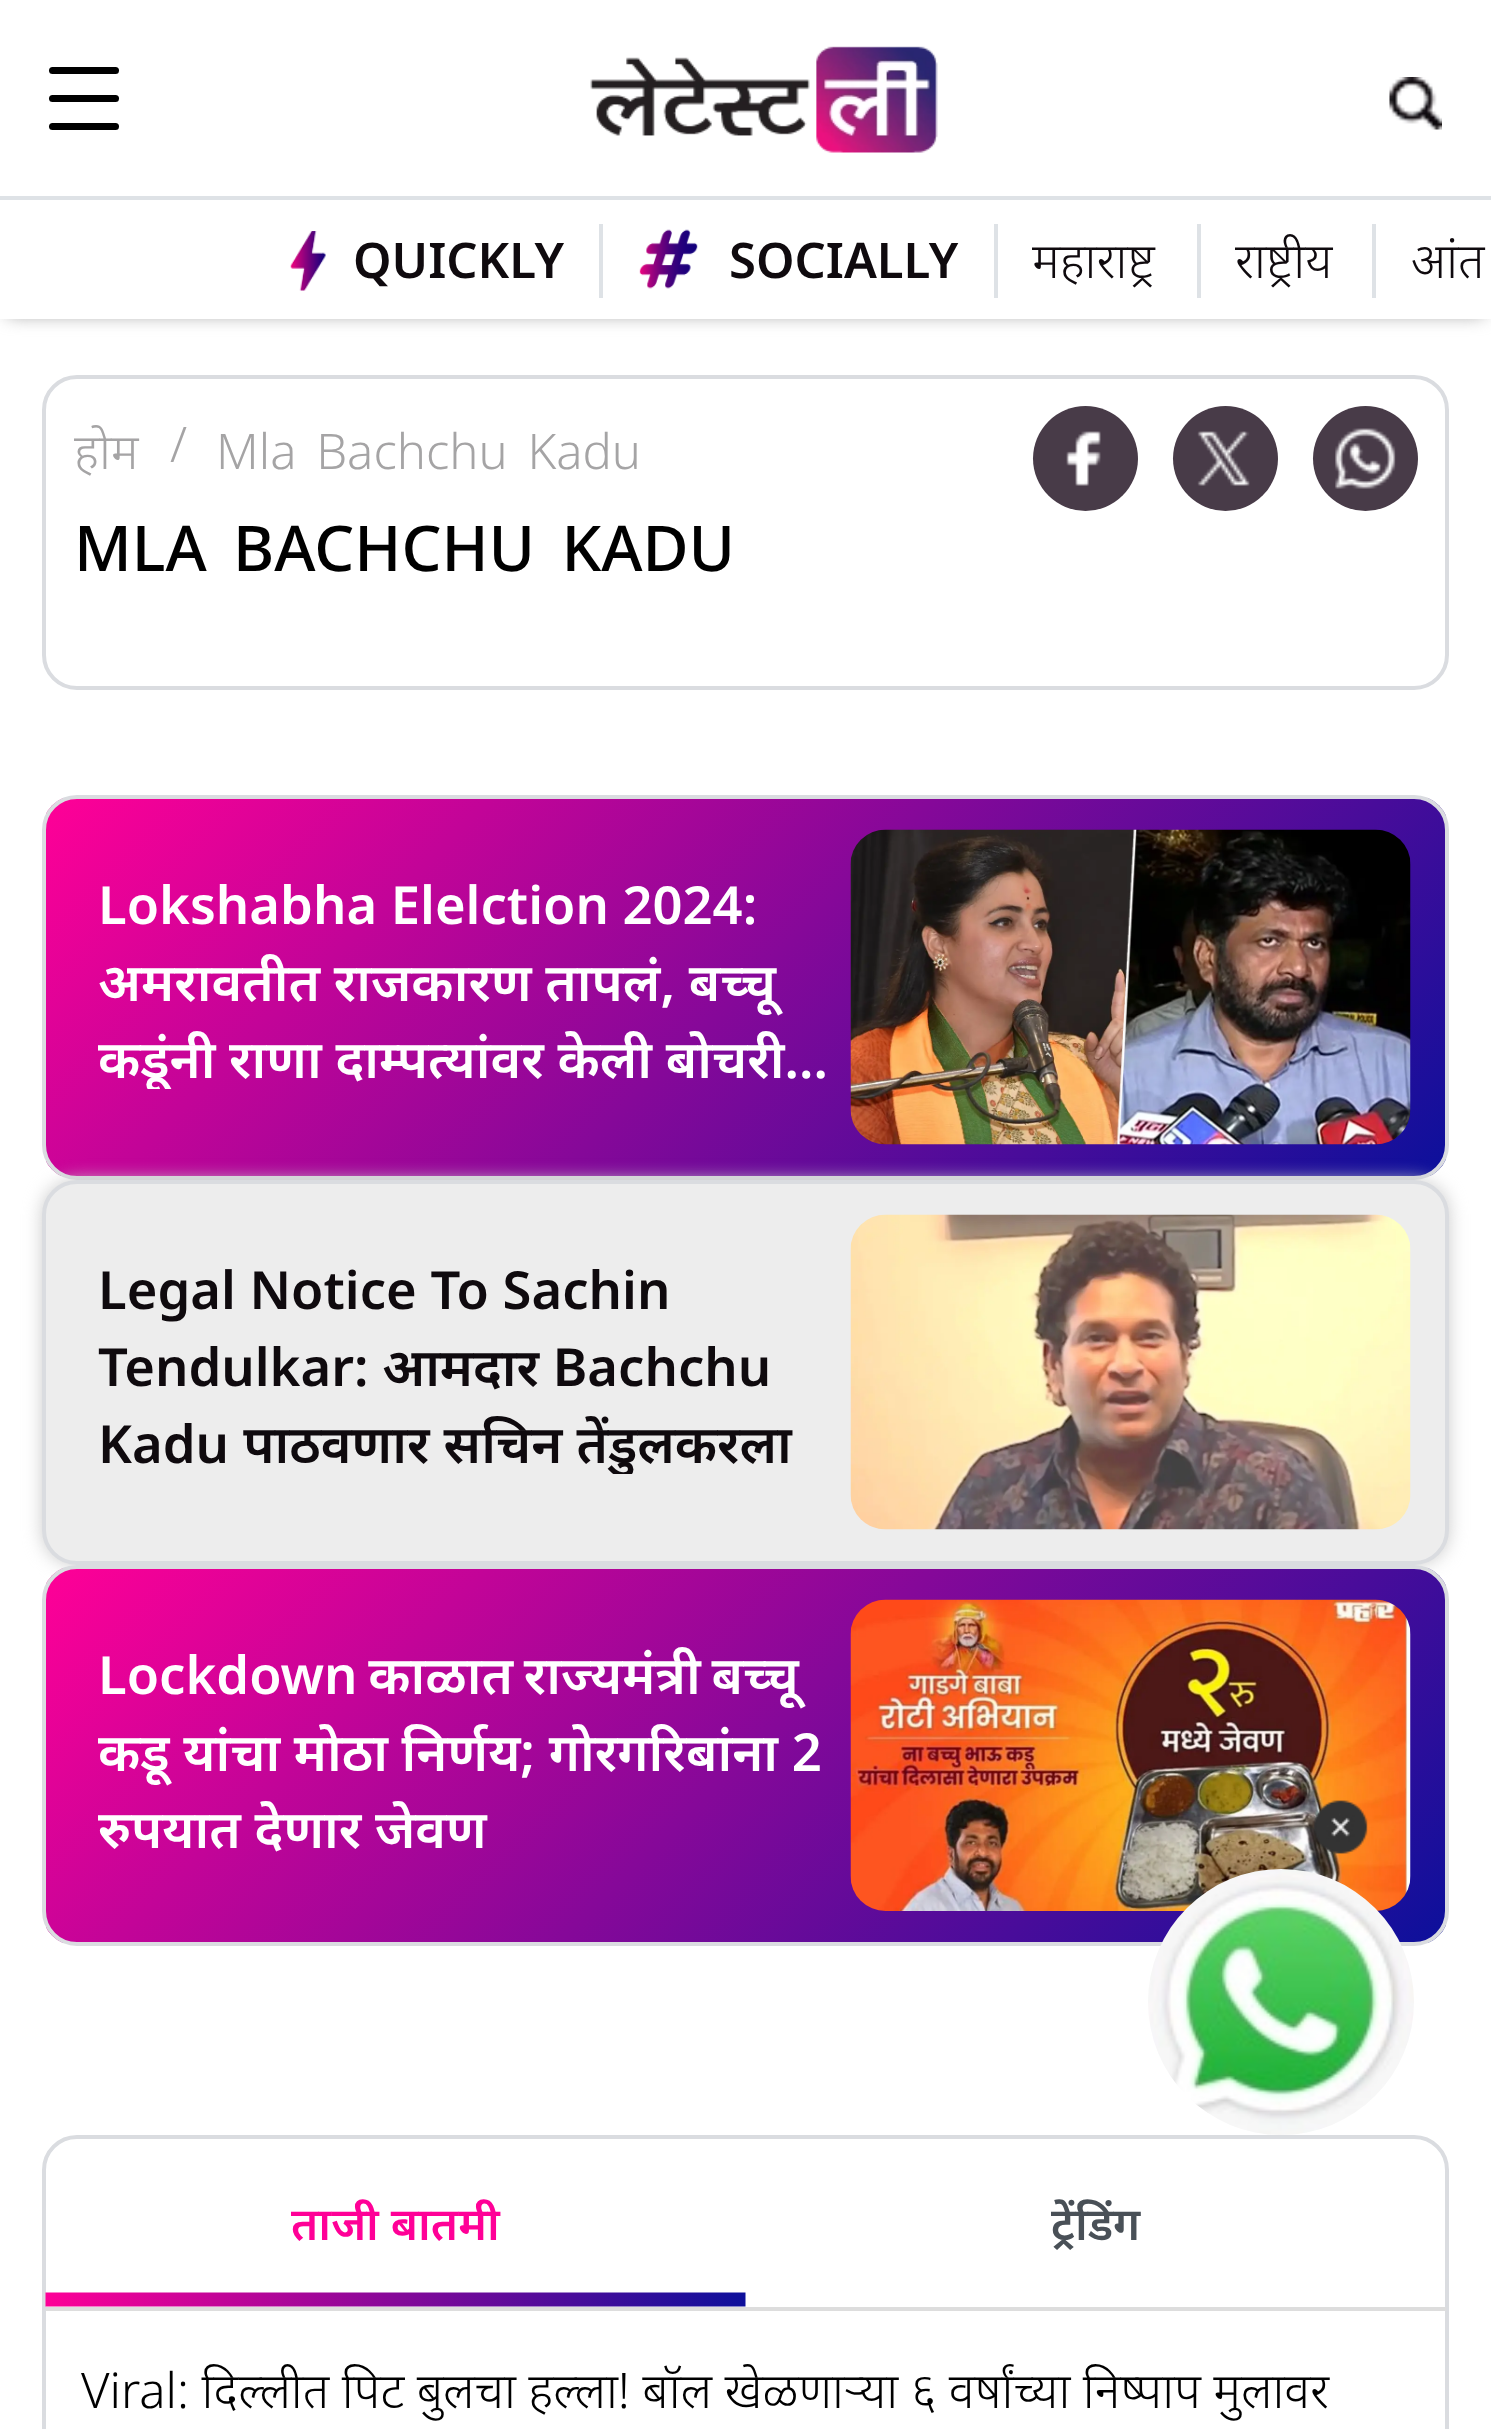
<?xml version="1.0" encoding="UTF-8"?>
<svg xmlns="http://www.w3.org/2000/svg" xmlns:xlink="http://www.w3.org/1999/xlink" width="1491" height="2429">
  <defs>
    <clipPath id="clip1"><rect x="42" y="795" width="1407" height="385" rx="35" /></clipPath>
    <linearGradient id="g1" gradientUnits="userSpaceOnUse" x1="301" y1="543" x2="1190" y2="1432"><stop offset="0" stop-color="#ff0097" /><stop offset="1" stop-color="#0c109b" /></linearGradient>
    <clipPath id="clip2"><rect x="42" y="1565" width="1407" height="381" rx="35" /></clipPath>
    <linearGradient id="g2" gradientUnits="userSpaceOnUse" x1="302" y1="1312" x2="1189" y2="2199"><stop offset="0" stop-color="#ff0097" /><stop offset="1" stop-color="#0c109b" /></linearGradient>
    <clipPath id="clip3"><rect x="81" y="830" width="770" height="259" /></clipPath>
    <clipPath id="clip4"><rect x="81" y="1215" width="770" height="259" /></clipPath>
  </defs>
  <rect width="100%" height="100%" fill="#ffffff" />
  <rect x="7" y="11" width="1477" height="304" fill="#9a9a9a" filter="blur(9px)" />
  <rect width="1491" height="319" fill="#ffffff" />
  <rect y="196" width="1491" height="4" fill="#dee2e6" />
  <rect x="49" y="67" width="70" height="7" rx="3.5" fill="#000000" />
  <rect x="49" y="95" width="70" height="7" rx="3.5" fill="#000000" />
  <rect x="49" y="123" width="70" height="7" rx="3.5" fill="#000000" />
  <image x="590" y="46" width="348" height="107" xlink:href="image1.png" />
  <image x="1389" y="77" width="53" height="53" xlink:href="image2.png" />
  <rect x="599" y="224" width="4" height="74" fill="#dee2e6" />
  <image x="290" y="231" width="36" height="60" xlink:href="image3.png" />
  <rect x="994" y="224" width="4" height="74" fill="#dee2e6" />
  <image x="639" y="229" width="59" height="60" xlink:href="image4.png" />
  <rect x="1197" y="224" width="4" height="74" fill="#dee2e6" />
  <rect x="1372" y="224" width="4" height="74" fill="#dee2e6" />
  <rect x="44" y="377" width="1403" height="311" rx="33" fill="none" stroke="#dadce0" stroke-width="4" />
  <circle cx="1085.5" cy="458.5" r="52.5" fill="#483b48" />
  <image x="1066" y="431" width="35" height="55" xlink:href="image5.png" />
  <circle cx="1225.5" cy="458.5" r="52.5" fill="#483b48" />
  <image x="1197" y="431" width="53" height="55" xlink:href="image6.png" />
  <circle cx="1365.5" cy="458.5" r="52.5" fill="#483b48" />
  <image x="1335" y="428" width="61" height="61" xlink:href="image7.png" />
  <g clip-path="url(#clip1)">
    <rect x="46" y="798" width="1400" height="378" fill="url(#g1)" />
  </g>
  <rect x="44" y="797" width="1403" height="381" rx="33" fill="none" stroke="#dadce0" stroke-width="4" />
  <image x="850" y="829" width="561" height="316" xlink:href="image8.png" />
  <rect x="42" y="1180" width="1407" height="385" rx="35" fill="#cccccc" filter="blur(9px)" />
  <rect x="44" y="1182" width="1403" height="381" rx="33" fill="#ededed" stroke="#dadce0" stroke-width="4" />
  <image x="850" y="1214" width="561" height="316" xlink:href="image9.png" />
  <g clip-path="url(#clip2)">
    <rect x="46" y="1568" width="1400" height="375" fill="url(#g2)" />
  </g>
  <rect x="44" y="1567" width="1403" height="377" rx="33" fill="none" stroke="#dadce0" stroke-width="4" />
  <image x="850" y="1599" width="561" height="312" xlink:href="image10.png" />
  <rect x="44" y="2137" width="1403" height="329" rx="33" fill="none" stroke="#dadce0" stroke-width="4" />
  <rect x="46" y="2307" width="1400" height="4" fill="#dddddd" />
  <image x="45" y="2292" width="701" height="15" xlink:href="image11.png" />
  <image x="1314" y="1800" width="54" height="54" xlink:href="image12.png" />
  <image x="1148" y="1869" width="266" height="266" xlink:href="image13.png" />
  <text x="353" y="278" style="font-family: Noto Sans; font-size: 49px; font-weight: 600; fill: #0f0a0e">QUICKLY</text>
  <text x="729" y="278" style="font-family: Noto Sans; font-size: 49px; font-weight: 600; fill: #0f0a0e">SOCIALLY</text>
  <text x="1032" y="278" style="font-family: Noto Sans; font-size: 49px; font-weight: 300; fill: #0f0a0e">महाराष्ट्र</text>
  <text x="1235" y="278" style="font-family: Noto Sans; font-size: 49px; font-weight: 300; fill: #0f0a0e">राष्ट्रीय</text>
  <text x="1411" y="278" style="font-family: Noto Sans; font-size: 49px; font-weight: 300; fill: #0f0a0e">आंत</text>
  <text x="74" y="469" style="font-family: Noto Sans; font-size: 49px; font-weight: 300; fill: #a5a4a5">होम</text>
  <text x="170" y="462" style="font-family: Noto Sans; font-size: 49px; font-weight: 300; fill: #a5a4a5">/</text>
  <text x="216" y="469" word-spacing="7" style="font-family: Noto Sans; font-size: 49px; font-weight: 300; fill: #a5a4a5">Mla Bachchu Kadu</text>
  <text x="74" y="571" word-spacing="10" style="font-family: Noto Sans; font-size: 63px; font-weight: 500; fill: #000000">MLA BACHCHU KADU</text>
  <text x="98" y="924" style="font-family: Noto Sans; font-size: 52.5px; font-weight: 600; fill: #ffffff">Lokshabha Elelction 2024:</text>
  <text x="98" y="1001" style="font-family: Noto Sans; font-size: 52.5px; font-weight: 600; fill: #ffffff">अमरावतीत राजकारण तापलं, बच्चू</text>
  <g clip-path="url(#clip3)">
    <text x="98" y="1078" style="font-family: Noto Sans; font-size: 52.5px; font-weight: 600; fill: #ffffff">कडूंनी राणा दाम्पत्यांवर केली बोचरी…</text>
  </g>
  <text x="98" y="1309" style="font-family: Noto Sans; font-size: 52.5px; font-weight: 600; fill: #0f0a0e">Legal Notice To Sachin</text>
  <text x="98" y="1386" style="font-family: Noto Sans; font-size: 52.5px; font-weight: 600; fill: #0f0a0e">Tendulkar: आमदार Bachchu</text>
  <g clip-path="url(#clip4)">
    <text x="98" y="1463" word-spacing="0.5" style="font-family: Noto Sans; font-size: 52.5px; font-weight: 600; fill: #0f0a0e">Kadu पाठवणार सचिन तेंडुलकरला</text>
  </g>
  <text x="98" y="1694" word-spacing="-3" style="font-family: Noto Sans; font-size: 52.5px; font-weight: 600; fill: #ffffff">Lockdown काळात राज्यमंत्री बच्चू</text>
  <text x="98" y="1771" style="font-family: Noto Sans; font-size: 52.5px; font-weight: 600; fill: #ffffff">कडू यांचा मोठा निर्णय; गोरगरिबांना 2</text>
  <text x="98" y="1848" style="font-family: Noto Sans; font-size: 52.5px; font-weight: 600; fill: #ffffff">रुपयात देणार जेवण</text>
  <text x="291" y="2240" style="font-family: Noto Sans; font-size: 45.5px; font-weight: 600; fill: #ff0097">ताजी बातमी</text>
  <text x="1051" y="2240" style="font-family: Noto Sans; font-size: 45.5px; font-weight: 600; fill: #495057">ट्रेंडिंग</text>
  <text x="81" y="2408" word-spacing="-0.25" style="font-family: Noto Sans; font-size: 49px; font-weight: 300; fill: #000000">Viral: दिल्लीत पिट बुलचा हल्ला! बॉल खेळणाऱ्या ६ वर्षांच्या निष्पाप मुलावर</text>
</svg>
